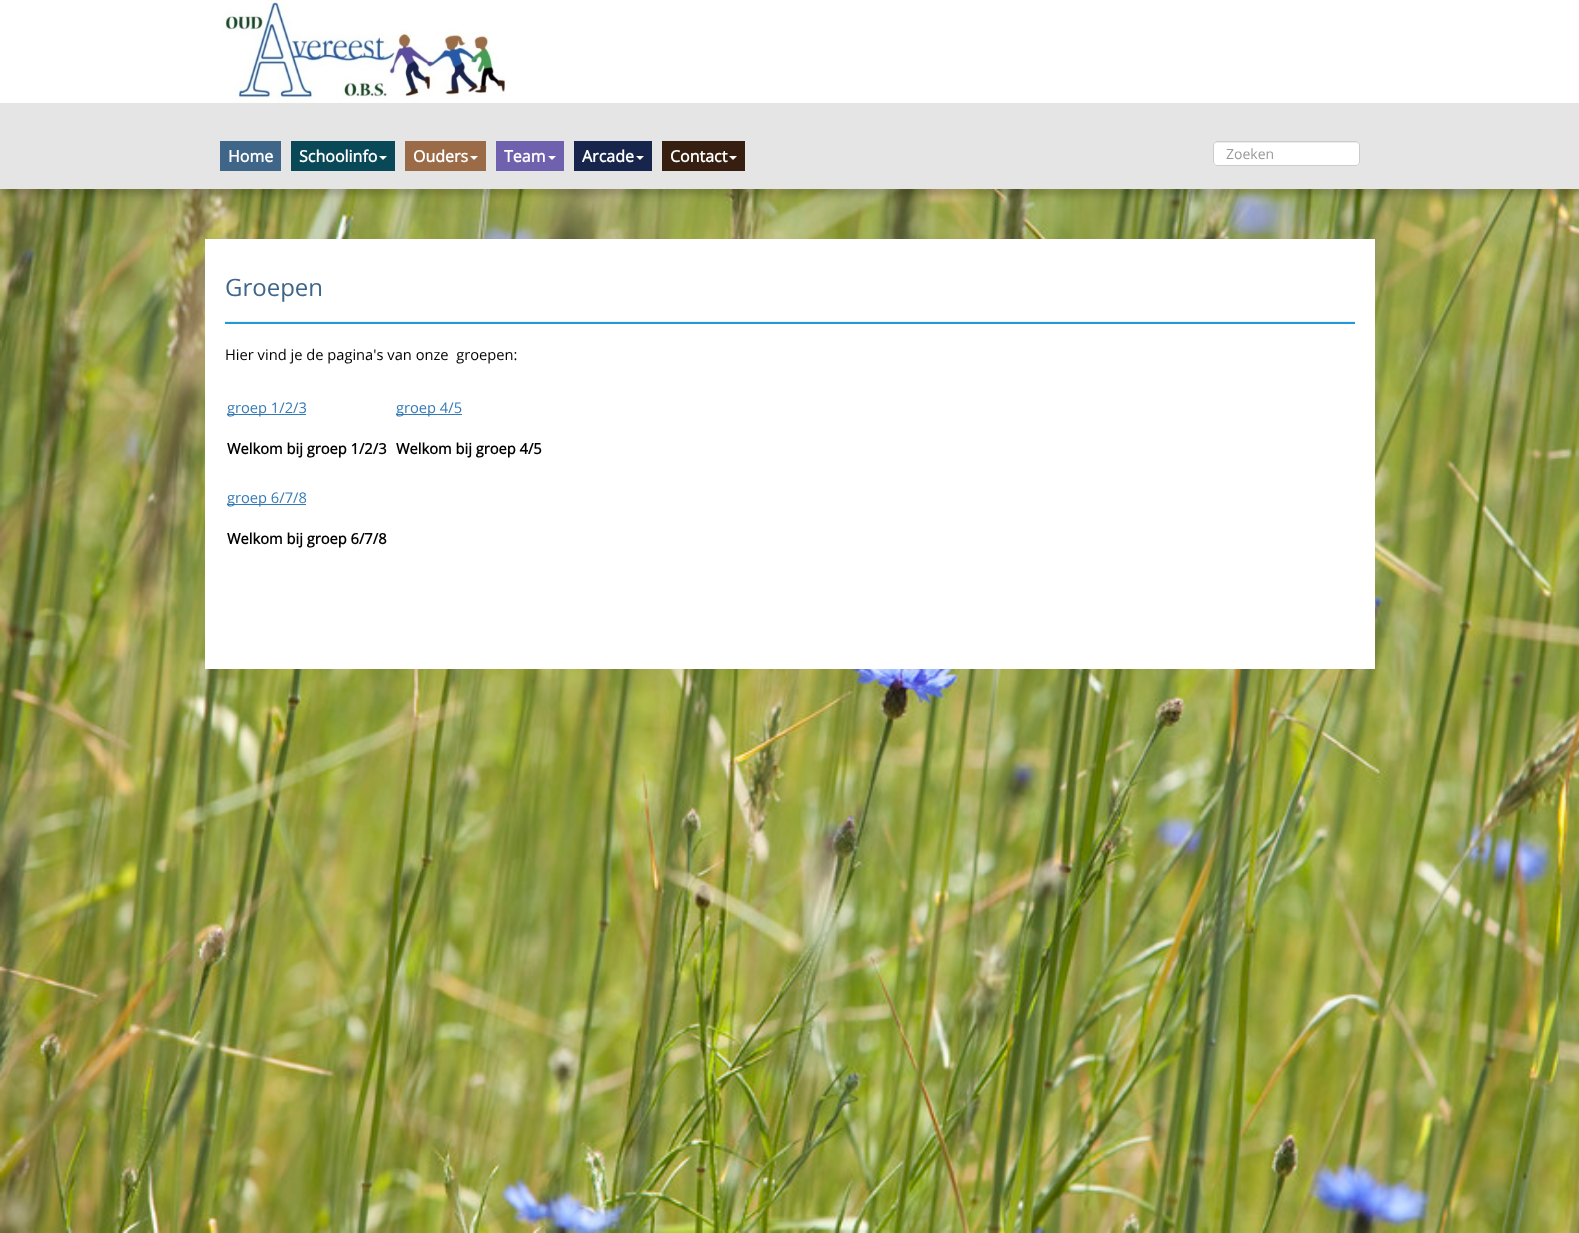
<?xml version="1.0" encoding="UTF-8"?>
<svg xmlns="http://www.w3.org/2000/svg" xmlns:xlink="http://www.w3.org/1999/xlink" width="1579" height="1233">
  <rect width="100%" height="100%" fill="#ffffff" />
  <image x="0" y="189" width="1579" height="1044" xlink:href="image1.png" />
  <image x="222" y="0" width="283" height="103" xlink:href="image2.png" />
  <rect y="109" width="1579" height="86" fill="#000000" fill-opacity="0.18" filter="blur(3px)" />
  <rect y="103" width="1579" height="86" fill="#e5e5e5" />
  <rect x="220" y="141" width="61" height="30" fill="#3f6589" />
  <rect x="291" y="141" width="104" height="30" fill="#094957" />
  <path d="M 379 156 h 8 l -4 4 z" fill="#ffffff" />
  <rect x="405" y="141" width="81" height="30" fill="#9b6b47" />
  <path d="M 470 156 h 8 l -4 4 z" fill="#ffffff" />
  <rect x="496" y="141" width="68" height="30" fill="#6f61ad" />
  <path d="M 548 156 h 8 l -4 4 z" fill="#ffffff" />
  <rect x="574" y="141" width="78" height="30" fill="#17244b" />
  <path d="M 636 156 h 8 l -4 4 z" fill="#ffffff" />
  <rect x="662" y="141" width="83" height="30" fill="#361f10" />
  <path d="M 729 156 h 8 l -4 4 z" fill="#ffffff" />
  <rect x="1213" y="141" width="147" height="25" rx="4" fill="#ffffff" />
  <path d="M 1217 143 h 139 c 2 0 3 1 3 3 v -1 c 0 -2 -1 -3 -3 -3 h -139 c -2 0 -3 1 -3 3 v 1 c 0 -2 1 -3 3 -3 z" fill="#ececec" />
  <rect x="1213.5" y="141.5" width="146" height="24" rx="3.5" fill="none" stroke="#cccccc" />
  <rect x="205" y="239" width="1170" height="430" fill="#ffffff" />
  <rect x="225" y="322" width="1130" height="2" fill="#1f9bdc" />
  <rect x="225" y="321" width="1130" height="1" fill="#eeeeee" />
  <rect x="227" y="414" width="79" height="1" fill="#337ab7" />
  <rect x="396" y="414" width="66" height="1" fill="#337ab7" />
  <rect x="227" y="504" width="79" height="1" fill="#337ab7" />
  <text x="228" y="162" style="font-family: Open Sans; font-size: 16px; font-weight: bold; fill: #ffffff">Home</text>
  <text x="299" y="162" style="font-family: Open Sans; font-size: 16px; font-weight: bold; fill: #ffffff">Schoolinfo</text>
  <text x="413" y="162" style="font-family: Open Sans; font-size: 16px; font-weight: bold; fill: #ffffff">Ouders</text>
  <text x="504" y="162" style="font-family: Open Sans; font-size: 16px; font-weight: bold; fill: #ffffff">Team</text>
  <text x="582" y="162" style="font-family: Open Sans; font-size: 16px; font-weight: bold; fill: #ffffff">Arcade</text>
  <text x="670" y="162" style="font-family: Open Sans; font-size: 16px; font-weight: bold; fill: #ffffff">Contact</text>
  <text x="1226" y="159" style="font-family: Open Sans; font-size: 14px; fill: #999999">Zoeken</text>
  <text x="225" y="296" style="font-family: Open Sans; font-size: 24px; fill: #3f6589">Groepen</text>
  <text x="225" y="360" style="font-family: Open Sans; font-size: 14.7px; fill: #000000" xml:space="preserve">Hier vind je de pagina's van onze  groepen:</text>
  <text x="227" y="413" style="font-family: Open Sans; font-size: 14.7px; fill: #337ab7">groep 1/2/3</text>
  <text x="227" y="454" style="font-family: Open Sans; font-size: 14.7px; font-weight: bold; fill: #000000">Welkom bij groep 1/2/3</text>
  <text x="396" y="413" style="font-family: Open Sans; font-size: 14.7px; fill: #337ab7">groep 4/5</text>
  <text x="396" y="454" style="font-family: Open Sans; font-size: 14.7px; font-weight: bold; fill: #000000">Welkom bij groep 4/5</text>
  <text x="227" y="503" style="font-family: Open Sans; font-size: 14.7px; fill: #337ab7">groep 6/7/8</text>
  <text x="227" y="544" style="font-family: Open Sans; font-size: 14.7px; font-weight: bold; fill: #000000">Welkom bij groep 6/7/8</text>
</svg>
